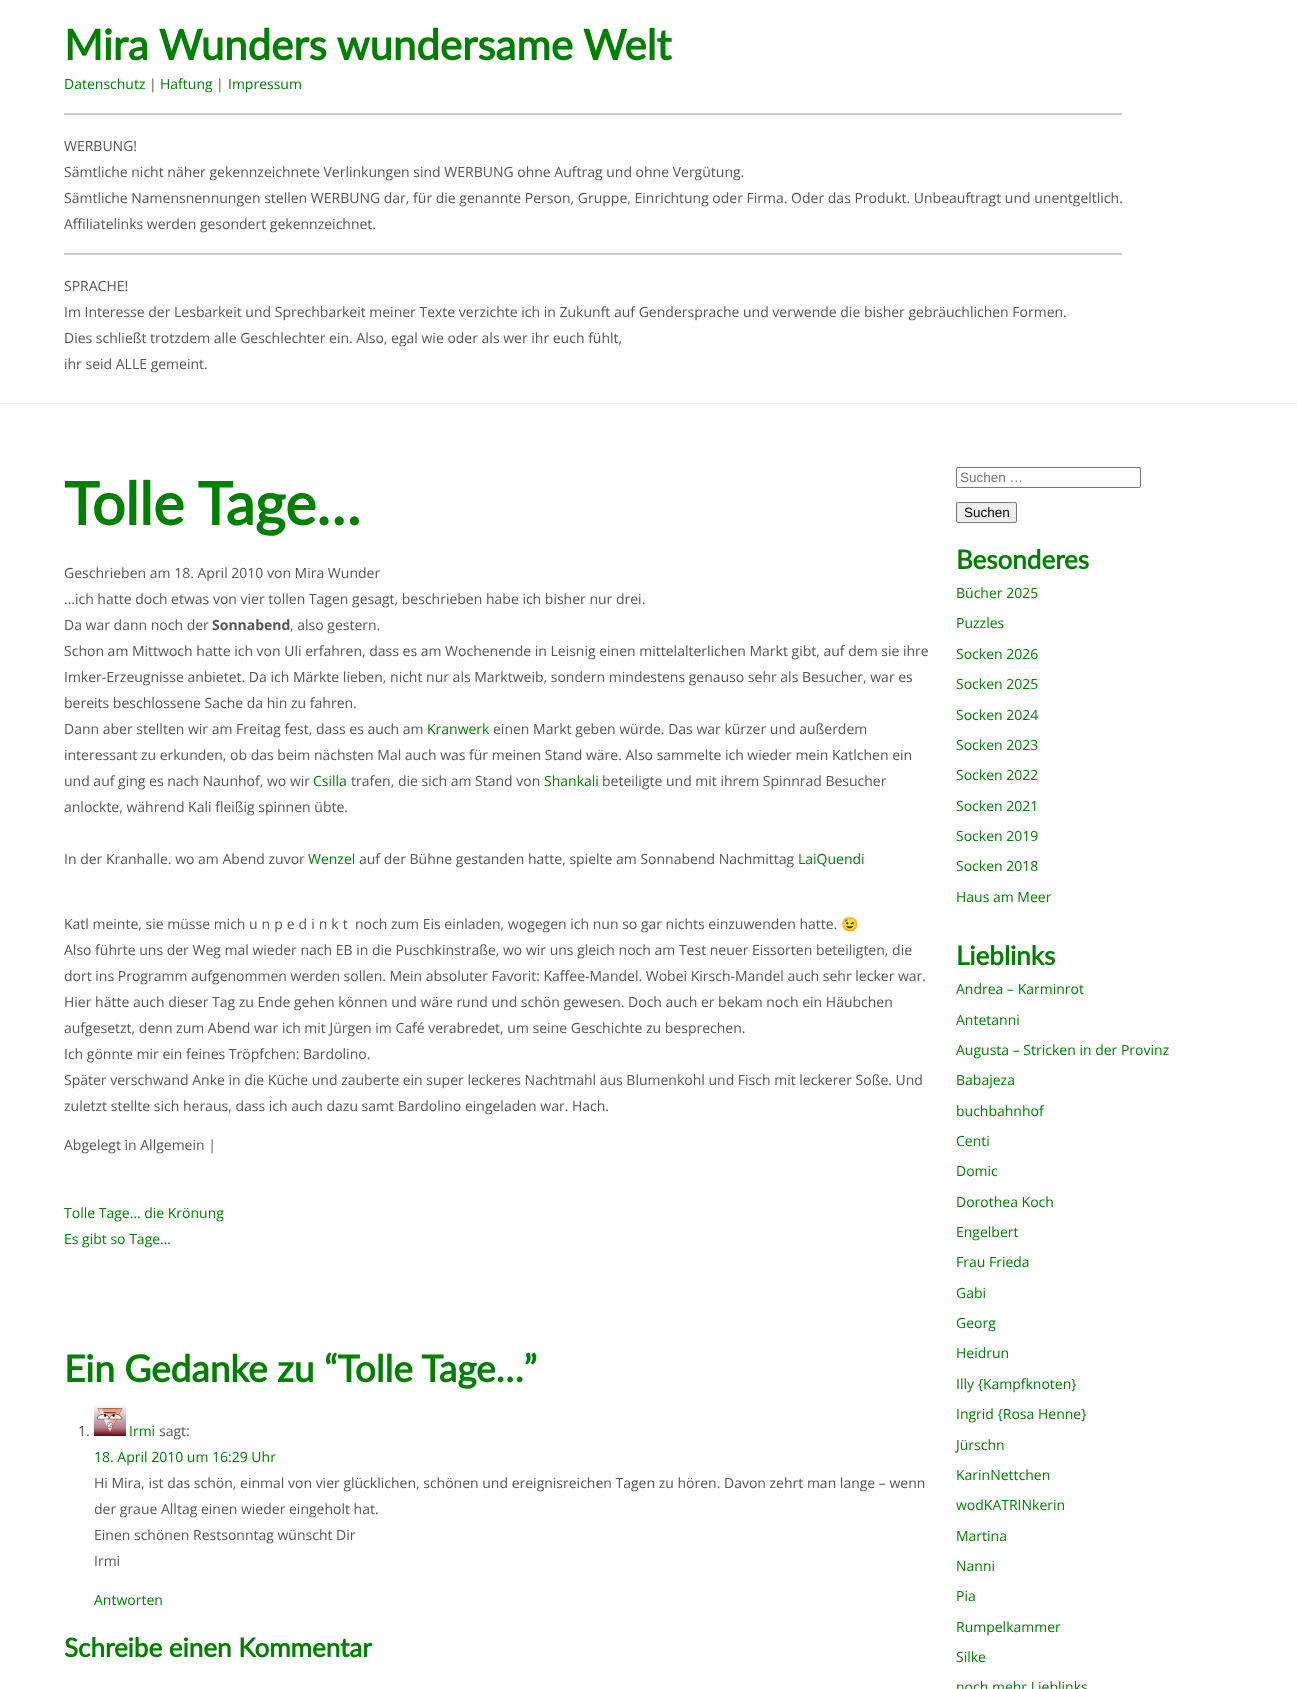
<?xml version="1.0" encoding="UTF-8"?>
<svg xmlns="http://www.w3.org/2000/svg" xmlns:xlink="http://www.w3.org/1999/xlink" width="1297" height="1689">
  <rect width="100%" height="100%" fill="#ffffff" />
  <rect y="403" width="1297" height="1" fill="#eeeeee" />
  <rect x="64" y="113" width="1058" height="2" fill="#cccccc" />
  <rect x="64" y="253" width="1058" height="2" fill="#cccccc" />
  <image x="94" y="1405" width="32" height="31" xlink:href="image1.png" />
  <rect x="956.5" y="467.5" width="184" height="20" rx="1.5" fill="none" stroke="#767676" />
  <rect x="956.5" y="502.5" width="60" height="20" rx="1.5" fill="#efefef" stroke="#767676" />
  <text x="64" y="60" style="font-family: Lato; font-size: 42px; font-weight: bold; fill: #008000">Mira Wunders wundersame Welt</text>
  <text x="64" y="89" style="font-family: Open Sans; font-size: 14px; fill: #008000">Datenschutz</text>
  <text x="149" y="89" style="font-family: Open Sans; font-size: 14px; fill: #555555">|</text>
  <text x="160" y="89" style="font-family: Open Sans; font-size: 14px; fill: #008000">Haftung</text>
  <text x="216" y="89" style="font-family: Open Sans; font-size: 14px; fill: #555555">|</text>
  <text x="228" y="89" style="font-family: Open Sans; font-size: 14px; fill: #008000">Impressum</text>
  <text x="64" y="151" style="font-family: Open Sans; font-size: 14px; fill: #555555">WERBUNG!</text>
  <text x="64" y="177" style="font-family: Open Sans; font-size: 14px; fill: #555555">Sämtliche nicht näher gekennzeichnete Verlinkungen sind WERBUNG ohne Auftrag und ohne Vergütung.</text>
  <text x="64" y="203" style="font-family: Open Sans; font-size: 14px; fill: #555555">Sämtliche Namensnennungen stellen WERBUNG dar, für die genannte Person, Gruppe, Einrichtung oder Firma. Oder das Produkt. Unbeauftragt und unentgeltlich.</text>
  <text x="64" y="229" style="font-family: Open Sans; font-size: 14px; fill: #555555">Affiliatelinks werden gesondert gekennzeichnet.</text>
  <text x="64" y="291" style="font-family: Open Sans; font-size: 14px; fill: #555555">SPRACHE!</text>
  <text x="64" y="317" style="font-family: Open Sans; font-size: 14px; fill: #555555">Im Interesse der Lesbarkeit und Sprechbarkeit meiner Texte verzichte ich in Zukunft auf Gendersprache und verwende die bisher gebräuchlichen Formen.</text>
  <text x="64" y="343" style="font-family: Open Sans; font-size: 14px; fill: #555555">Dies schließt trotzdem alle Geschlechter ein. Also, egal wie oder als wer ihr euch fühlt,</text>
  <text x="64" y="369" style="font-family: Open Sans; font-size: 14px; fill: #555555">ihr seid ALLE gemeint.</text>
  <text x="64" y="525" style="font-family: Lato; font-size: 59px; font-weight: bold; fill: #008000">Tolle Tage…</text>
  <text x="64" y="578" style="font-family: Open Sans; font-size: 14px; fill: #555555">Geschrieben am 18. April 2010 von Mira Wunder</text>
  <text x="64" y="604" style="font-family: Open Sans; font-size: 14px; fill: #555555">…ich hatte doch etwas von vier tollen Tagen gesagt, beschrieben habe ich bisher nur drei.</text>
  <text x="64" y="630" style="font-family: Open Sans; font-size: 14px; fill: #555555">Da war dann noch der</text>
  <text x="212" y="630" style="font-family: Open Sans; font-size: 14px; font-weight: bold; fill: #555555">Sonnabend</text>
  <text x="290" y="630" style="font-family: Open Sans; font-size: 14px; fill: #555555">, also gestern.</text>
  <text x="64" y="656" style="font-family: Open Sans; font-size: 14px; fill: #555555">Schon am Mittwoch hatte ich von Uli erfahren, dass es am Wochenende in Leisnig einen mittelalterlichen Markt gibt, auf dem sie ihre</text>
  <text x="64" y="682" style="font-family: Open Sans; font-size: 14px; fill: #555555">Imker-Erzeugnisse anbietet. Da ich Märkte lieben, nicht nur als Marktweib, sondern mindestens genauso sehr als Besucher, war es</text>
  <text x="64" y="708" style="font-family: Open Sans; font-size: 14px; fill: #555555">bereits beschlossene Sache da hin zu fahren.</text>
  <text x="64" y="734" style="font-family: Open Sans; font-size: 14px; fill: #555555">Dann aber stellten wir am Freitag fest, dass es auch am</text>
  <text x="427" y="734" style="font-family: Open Sans; font-size: 14px; fill: #008000">Kranwerk</text>
  <text x="493" y="734" style="font-family: Open Sans; font-size: 14px; fill: #555555">einen Markt geben würde. Das war kürzer und außerdem</text>
  <text x="64" y="760" style="font-family: Open Sans; font-size: 14px; fill: #555555">interessant zu erkunden, ob das beim nächsten Mal auch was für meinen Stand wäre. Also sammelte ich wieder mein Katlchen ein</text>
  <text x="64" y="786" style="font-family: Open Sans; font-size: 14px; fill: #555555">und auf ging es nach Naunhof, wo wir</text>
  <text x="313" y="786" style="font-family: Open Sans; font-size: 14px; fill: #008000">Csilla</text>
  <text x="351" y="786" style="font-family: Open Sans; font-size: 14px; fill: #555555">trafen, die sich am Stand von</text>
  <text x="544" y="786" style="font-family: Open Sans; font-size: 14px; fill: #008000">Shankali</text>
  <text x="602" y="786" style="font-family: Open Sans; font-size: 14px; fill: #555555">beteiligte und mit ihrem Spinnrad Besucher</text>
  <text x="64" y="812" style="font-family: Open Sans; font-size: 14px; fill: #555555">anlockte, während Kali fleißig spinnen übte.</text>
  <text x="64" y="864" style="font-family: Open Sans; font-size: 14px; fill: #555555">In der Kranhalle. wo am Abend zuvor</text>
  <text x="308" y="864" style="font-family: Open Sans; font-size: 14px; fill: #008000">Wenzel</text>
  <text x="359" y="864" style="font-family: Open Sans; font-size: 14px; fill: #555555">auf der Bühne gestanden hatte, spielte am Sonnabend Nachmittag</text>
  <text x="798" y="864" style="font-family: Open Sans; font-size: 14px; fill: #008000">LaiQuendi</text>
  <text x="64" y="929" style="font-family: Open Sans; font-size: 14px; fill: #555555">Katl meinte, sie müsse mich</text>
  <text x="249" y="929" style="font-family: Open Sans; font-size: 14px; letter-spacing: 4px; fill: #555555">unpedinkt</text>
  <text x="355" y="929" style="font-family: Open Sans; font-size: 14px; fill: #555555">noch zum Eis einladen, wogegen ich nun so gar nichts einzuwenden hatte.</text>
  <text x="841" y="929" style="font-family: Noto Color Emoji; font-size: 14px; font-weight: bold; fill: #555555">😉</text>
  <text x="64" y="955" style="font-family: Open Sans; font-size: 14px; fill: #555555">Also führte uns der Weg mal wieder nach EB in die Puschkinstraße, wo wir uns gleich noch am Test neuer Eissorten beteiligten, die</text>
  <text x="64" y="981" style="font-family: Open Sans; font-size: 14px; fill: #555555">dort ins Programm aufgenommen werden sollen. Mein absoluter Favorit: Kaffee-Mandel. Wobei Kirsch-Mandel auch sehr lecker war.</text>
  <text x="64" y="1007" style="font-family: Open Sans; font-size: 14px; fill: #555555">Hier hätte auch dieser Tag zu Ende gehen können und wäre rund und schön gewesen. Doch auch er bekam noch ein Häubchen</text>
  <text x="64" y="1033" style="font-family: Open Sans; font-size: 14px; fill: #555555">aufgesetzt, denn zum Abend war ich mit Jürgen im Café verabredet, um seine Geschichte zu besprechen.</text>
  <text x="64" y="1059" style="font-family: Open Sans; font-size: 14px; fill: #555555">Ich gönnte mir ein feines Tröpfchen: Bardolino.</text>
  <text x="64" y="1085" style="font-family: Open Sans; font-size: 14px; fill: #555555">Später verschwand Anke in die Küche und zauberte ein super leckeres Nachtmahl aus Blumenkohl und Fisch mit leckerer Soße. Und</text>
  <text x="64" y="1111" style="font-family: Open Sans; font-size: 14px; fill: #555555">zuletzt stellte sich heraus, dass ich auch dazu samt Bardolino eingeladen war. Hach.</text>
  <text x="64" y="1150" style="font-family: Open Sans; font-size: 14px; fill: #555555">Abgelegt in Allgemein |</text>
  <text x="64" y="1218" style="font-family: Open Sans; font-size: 14px; fill: #008000">Tolle Tage… die Krönung</text>
  <text x="64" y="1244" style="font-family: Open Sans; font-size: 14px; fill: #008000">Es gibt so Tage…</text>
  <text x="64" y="1382" style="font-family: Lato; font-size: 37px; font-weight: bold; fill: #008000">Ein Gedanke zu “Tolle Tage…”</text>
  <text x="78" y="1436" style="font-family: Open Sans; font-size: 14px; fill: #555555">1.</text>
  <text x="129" y="1436" style="font-family: Open Sans; font-size: 14px; fill: #008000">Irmi</text>
  <text x="159" y="1436" style="font-family: Open Sans; font-size: 14px; fill: #555555">sagt:</text>
  <text x="94" y="1462" style="font-family: Open Sans; font-size: 14px; fill: #008000">18. April 2010 um 16:29 Uhr</text>
  <text x="94" y="1488" style="font-family: Open Sans; font-size: 14px; fill: #555555">Hi Mira, ist das schön, einmal von vier glücklichen, schönen und ereignisreichen Tagen zu hören. Davon zehrt man lange – wenn</text>
  <text x="94" y="1514" style="font-family: Open Sans; font-size: 14px; fill: #555555">der graue Alltag einen wieder eingeholt hat.</text>
  <text x="94" y="1540" style="font-family: Open Sans; font-size: 14px; fill: #555555">Einen schönen Restsonntag wünscht Dir</text>
  <text x="94" y="1566" style="font-family: Open Sans; font-size: 14px; fill: #555555">Irmi</text>
  <text x="94" y="1605" style="font-family: Open Sans; font-size: 14px; fill: #008000">Antworten</text>
  <text x="64" y="1657" style="font-family: Lato; font-size: 26px; font-weight: bold; fill: #008000">Schreibe einen Kommentar</text>
  <text x="960" y="482" style="font-family: Liberation Sans; font-size: 13.5px; fill: #757575">Suchen …</text>
  <text x="964" y="517" style="font-family: Liberation Sans; font-size: 13.5px; fill: #000000">Suchen</text>
  <text x="956" y="569" style="font-family: Lato; font-size: 26px; font-weight: bold; fill: #008000">Besonderes</text>
  <text x="956" y="598" style="font-family: Open Sans; font-size: 14px; fill: #008000">Bücher 2025</text>
  <text x="956" y="628" style="font-family: Open Sans; font-size: 14px; fill: #008000">Puzzles</text>
  <text x="956" y="659" style="font-family: Open Sans; font-size: 14px; fill: #008000">Socken 2026</text>
  <text x="956" y="689" style="font-family: Open Sans; font-size: 14px; fill: #008000">Socken 2025</text>
  <text x="956" y="720" style="font-family: Open Sans; font-size: 14px; fill: #008000">Socken 2024</text>
  <text x="956" y="750" style="font-family: Open Sans; font-size: 14px; fill: #008000">Socken 2023</text>
  <text x="956" y="780" style="font-family: Open Sans; font-size: 14px; fill: #008000">Socken 2022</text>
  <text x="956" y="811" style="font-family: Open Sans; font-size: 14px; fill: #008000">Socken 2021</text>
  <text x="956" y="841" style="font-family: Open Sans; font-size: 14px; fill: #008000">Socken 2019</text>
  <text x="956" y="871" style="font-family: Open Sans; font-size: 14px; fill: #008000">Socken 2018</text>
  <text x="956" y="902" style="font-family: Open Sans; font-size: 14px; fill: #008000">Haus am Meer</text>
  <text x="956" y="965" style="font-family: Lato; font-size: 26px; font-weight: bold; fill: #008000">Lieblinks</text>
  <text x="956" y="994" style="font-family: Open Sans; font-size: 14px; fill: #008000">Andrea – Karminrot</text>
  <text x="956" y="1025" style="font-family: Open Sans; font-size: 14px; fill: #008000">Antetanni</text>
  <text x="956" y="1055" style="font-family: Open Sans; font-size: 14px; fill: #008000">Augusta – Stricken in der Provinz</text>
  <text x="956" y="1085" style="font-family: Open Sans; font-size: 14px; fill: #008000">Babajeza</text>
  <text x="956" y="1116" style="font-family: Open Sans; font-size: 14px; fill: #008000">buchbahnhof</text>
  <text x="956" y="1146" style="font-family: Open Sans; font-size: 14px; fill: #008000">Centi</text>
  <text x="956" y="1176" style="font-family: Open Sans; font-size: 14px; fill: #008000">Domic</text>
  <text x="956" y="1207" style="font-family: Open Sans; font-size: 14px; fill: #008000">Dorothea Koch</text>
  <text x="956" y="1237" style="font-family: Open Sans; font-size: 14px; fill: #008000">Engelbert</text>
  <text x="956" y="1267" style="font-family: Open Sans; font-size: 14px; fill: #008000">Frau Frieda</text>
  <text x="956" y="1298" style="font-family: Open Sans; font-size: 14px; fill: #008000">Gabi</text>
  <text x="956" y="1328" style="font-family: Open Sans; font-size: 14px; fill: #008000">Georg</text>
  <text x="956" y="1358" style="font-family: Open Sans; font-size: 14px; fill: #008000">Heidrun</text>
  <text x="956" y="1389" style="font-family: Open Sans; font-size: 14px; fill: #008000">Illy {Kampfknoten}</text>
  <text x="956" y="1419" style="font-family: Open Sans; font-size: 14px; fill: #008000">Ingrid {Rosa Henne}</text>
  <text x="956" y="1450" style="font-family: Open Sans; font-size: 14px; fill: #008000">Jürschn</text>
  <text x="956" y="1480" style="font-family: Open Sans; font-size: 14px; fill: #008000">KarinNettchen</text>
  <text x="956" y="1510" style="font-family: Open Sans; font-size: 14px; fill: #008000">wodKATRINkerin</text>
  <text x="956" y="1541" style="font-family: Open Sans; font-size: 14px; fill: #008000">Martina</text>
  <text x="956" y="1571" style="font-family: Open Sans; font-size: 14px; fill: #008000">Nanni</text>
  <text x="956" y="1601" style="font-family: Open Sans; font-size: 14px; fill: #008000">Pia</text>
  <text x="956" y="1632" style="font-family: Open Sans; font-size: 14px; fill: #008000">Rumpelkammer</text>
  <text x="956" y="1662" style="font-family: Open Sans; font-size: 14px; fill: #008000">Silke</text>
  <text x="956" y="1692" style="font-family: Open Sans; font-size: 14px; fill: #008000">noch mehr Lieblinks</text>
</svg>
